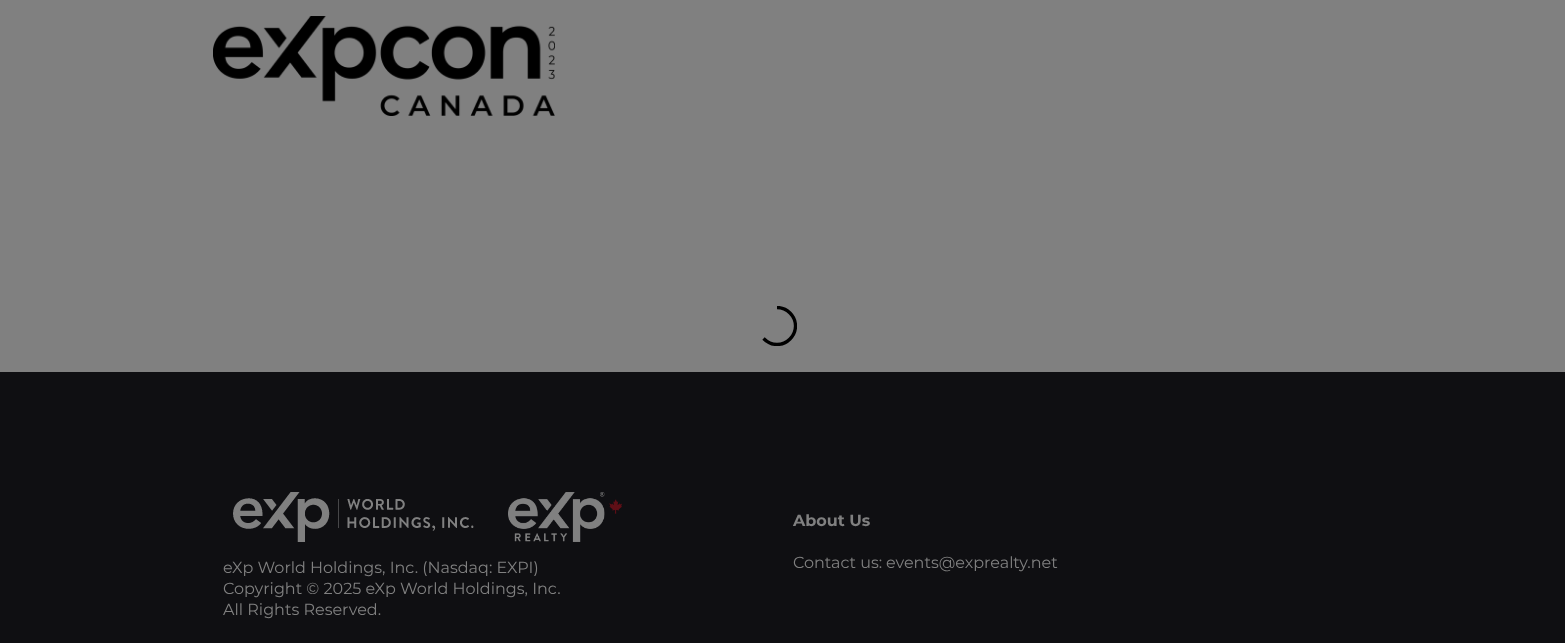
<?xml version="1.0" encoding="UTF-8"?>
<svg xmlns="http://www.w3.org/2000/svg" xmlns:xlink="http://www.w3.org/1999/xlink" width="1565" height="643">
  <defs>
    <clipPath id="clip1"><rect x="757" y="306" width="40" height="40" /></clipPath>
  </defs>
  <rect width="100%" height="100%" fill="#808080" />
  <image x="213" y="16" width="342" height="100" xlink:href="image1.png" />
  <g clip-path="url(#clip1)">
    <path d="M 777 307.5 c 10 0 18.5 8.5 18.5 18.5 c 0 10 -8.5 18.5 -18.5 18.5 c -5.5 0 -10 -2.5 -13.5 -6" fill="none" stroke="#000000" stroke-width="3.3" />
  </g>
  <rect y="372" width="1565" height="271" fill="#0f0f12" />
  <image x="233" y="492" width="241" height="50" xlink:href="image2.png" />
  <image x="508" y="492" width="114" height="50" xlink:href="image3.png" />
  <text x="793" y="526" style="font-family: Montserrat; font-size: 16px; font-weight: bold; fill: #808080">About Us</text>
  <text x="793" y="568" style="font-family: Montserrat; font-size: 16px; fill: #808080">Contact us:</text>
  <text x="886" y="568" style="font-family: Montserrat; font-size: 16px; fill: #808080">events@exprealty.net</text>
  <text x="223" y="573" style="font-family: Montserrat; font-size: 16px; fill: #808080">eXp World Holdings, Inc. (Nasdaq: EXPI)</text>
  <text x="223" y="594" style="font-family: Montserrat; font-size: 16px; fill: #808080">Copyright © 2025 eXp World Holdings, Inc.</text>
  <text x="223" y="615" style="font-family: Montserrat; font-size: 16px; fill: #808080">All Rights Reserved.</text>
</svg>
